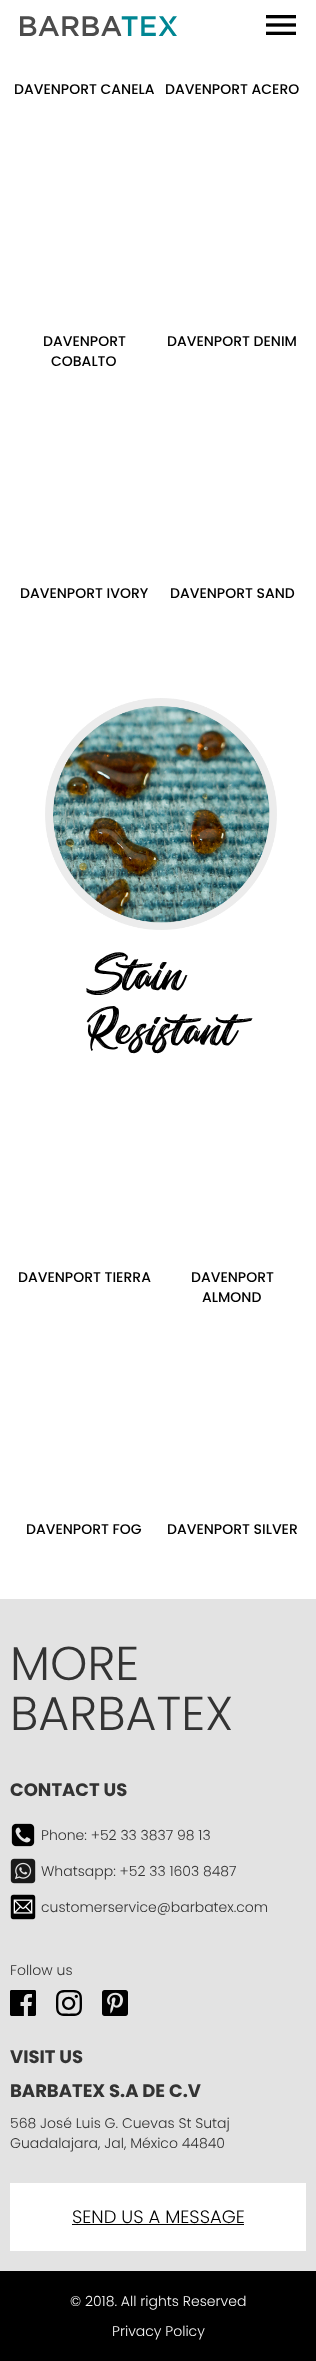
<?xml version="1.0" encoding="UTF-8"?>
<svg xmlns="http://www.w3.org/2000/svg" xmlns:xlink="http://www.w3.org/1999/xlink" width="316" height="2361">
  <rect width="100%" height="100%" fill="#ffffff" />
  <image x="20" y="16" width="157" height="20" xlink:href="image1.png" />
  <image x="266" y="15" width="30" height="20" xlink:href="image2.png" />
  <image x="45" y="698" width="232" height="232" xlink:href="image3.png" />
  <rect y="1599" width="316" height="672" fill="#e3e3e3" />
  <image x="11" y="1823" width="24" height="24" xlink:href="image4.png" />
  <image x="10" y="1858" width="26" height="26" xlink:href="image5.png" />
  <image x="10" y="1894" width="26" height="26" xlink:href="image6.png" />
  <image x="10" y="1990" width="26" height="26" xlink:href="image7.png" />
  <image x="56" y="1990" width="26" height="26" xlink:href="image8.png" />
  <image x="102" y="1990" width="26" height="26" xlink:href="image9.png" />
  <rect x="10" y="2183" width="296" height="68" fill="#ffffff" />
  <rect x="72" y="2224" width="172" height="1" fill="#000000" />
  <rect y="2271" width="316" height="90" fill="#000000" />
  <text x="14" y="94" style="font-family: Poppins; font-size: 14px; font-weight: 500; fill: #000000">DAVENPORT CANELA</text>
  <text x="165" y="94" style="font-family: Poppins; font-size: 14px; font-weight: 500; fill: #000000">DAVENPORT ACERO</text>
  <text x="43" y="346" style="font-family: Poppins; font-size: 14px; font-weight: 500; fill: #000000">DAVENPORT</text>
  <text x="51" y="366" style="font-family: Poppins; font-size: 14px; font-weight: 500; fill: #000000">COBALTO</text>
  <text x="167" y="346" style="font-family: Poppins; font-size: 14px; font-weight: 500; fill: #000000">DAVENPORT DENIM</text>
  <text x="20" y="598" style="font-family: Poppins; font-size: 14px; font-weight: 500; fill: #000000">DAVENPORT IVORY</text>
  <text x="170" y="598" style="font-family: Poppins; font-size: 14px; font-weight: 500; fill: #000000">DAVENPORT SAND</text>
  <text x="85" y="989" style="font-family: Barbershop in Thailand; font-size: 45px; fill: #000000">Stain</text>
  <text x="85" y="1044" style="font-family: Barbershop in Thailand; font-size: 45px; fill: #000000">Resistant</text>
  <text x="18" y="1282" style="font-family: Poppins; font-size: 14px; font-weight: 500; fill: #000000">DAVENPORT TIERRA</text>
  <text x="191" y="1282" style="font-family: Poppins; font-size: 14px; font-weight: 500; fill: #000000">DAVENPORT</text>
  <text x="202" y="1302" style="font-family: Poppins; font-size: 14px; font-weight: 500; fill: #000000">ALMOND</text>
  <text x="26" y="1534" style="font-family: Poppins; font-size: 14px; font-weight: 500; fill: #000000">DAVENPORT FOG</text>
  <text x="167" y="1534" style="font-family: Poppins; font-size: 14px; font-weight: 500; fill: #000000">DAVENPORT SILVER</text>
  <text x="10" y="1680" style="font-family: Poppins; font-size: 47.5px; font-weight: 300; fill: #333333">MORE</text>
  <text x="10" y="1730" style="font-family: Poppins; font-size: 47.5px; font-weight: 300; fill: #333333">BARBATEX</text>
  <text x="10" y="1796" style="font-family: Poppins; font-size: 18px; font-weight: bold; fill: #333333">CONTACT US</text>
  <text x="41" y="1840" style="font-family: Poppins; font-size: 14px; font-weight: 300; fill: #333333">Phone: +52 33 3837 98 13</text>
  <text x="41" y="1876" style="font-family: Poppins; font-size: 14px; font-weight: 300; fill: #333333">Whatsapp: +52 33 1603 8487</text>
  <text x="41" y="1912" style="font-family: Poppins; font-size: 14px; font-weight: 300; fill: #333333">customerservice@barbatex.com</text>
  <text x="10" y="1975" style="font-family: Poppins; font-size: 14px; font-weight: 300; fill: #333333">Follow us</text>
  <text x="10" y="2063" style="font-family: Poppins; font-size: 18px; font-weight: bold; fill: #333333">VISIT US</text>
  <text x="10" y="2097" style="font-family: Poppins; font-size: 18px; font-weight: bold; fill: #333333">BARBATEX S.A DE C.V</text>
  <text x="10" y="2128" style="font-family: Poppins; font-size: 14px; font-weight: 300; fill: #333333">568 José Luis G. Cuevas St Sutaj</text>
  <text x="10" y="2148" style="font-family: Poppins; font-size: 14px; font-weight: 300; fill: #333333">Guadalajara, Jal, México 44840</text>
  <text x="72" y="2223" style="font-family: Poppins; font-size: 18px; font-weight: 300; fill: #000000">SEND US A MESSAGE</text>
  <text x="70" y="2306" style="font-family: Poppins; font-size: 14px; font-weight: 300; fill: #f5f5f5">© 2018. All rights Reserved</text>
  <text x="112" y="2336" style="font-family: Poppins; font-size: 14px; font-weight: 300; fill: #f5f5f5">Privacy Policy</text>
</svg>
